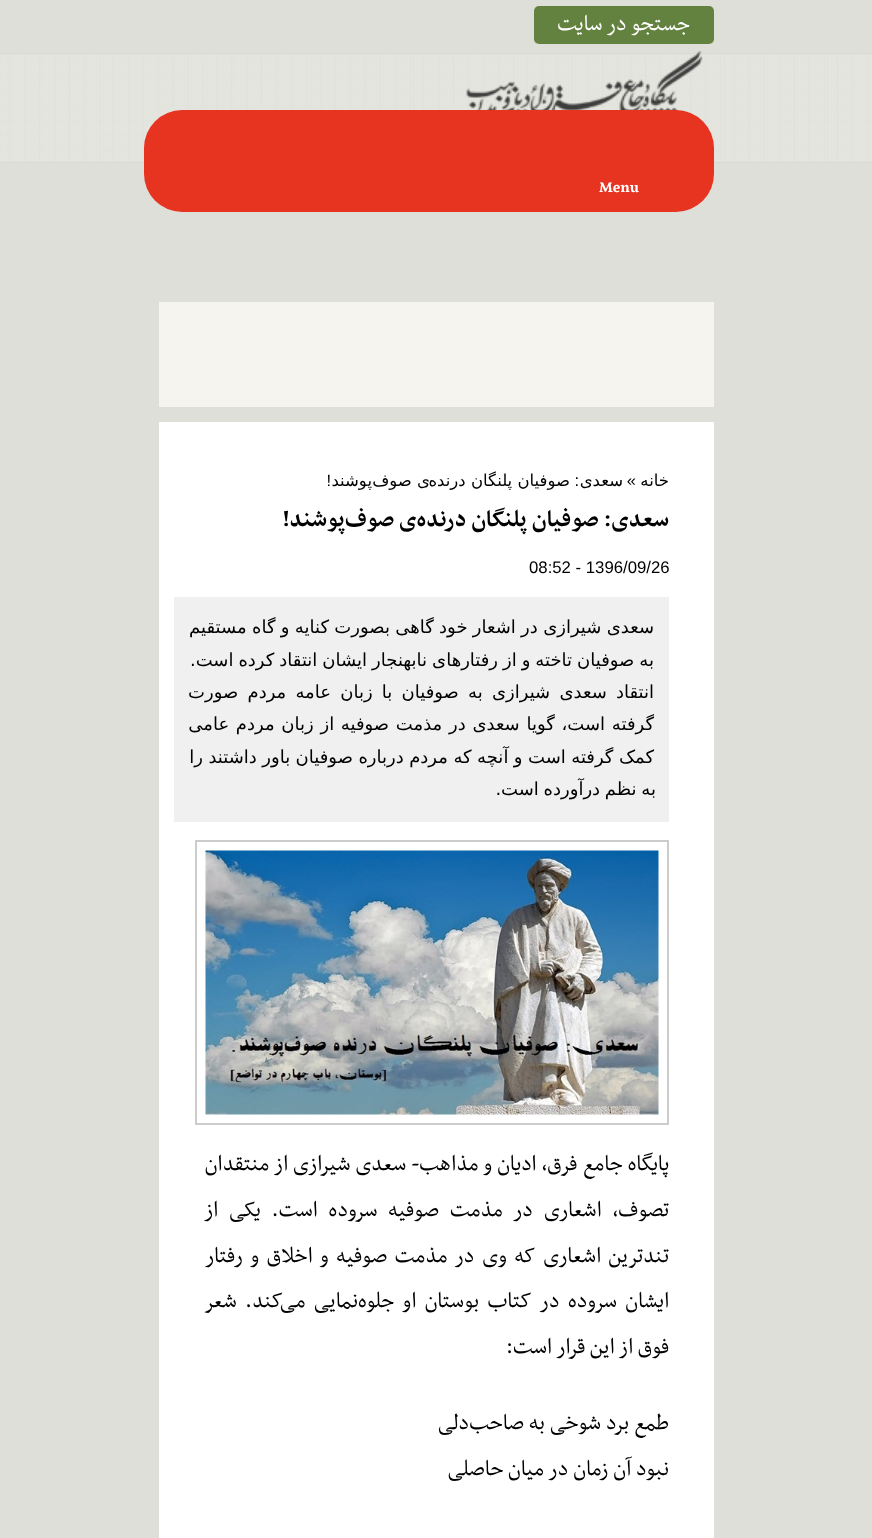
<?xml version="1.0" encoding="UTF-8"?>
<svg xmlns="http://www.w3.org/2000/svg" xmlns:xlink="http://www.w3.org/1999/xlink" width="872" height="1538">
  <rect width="100%" height="100%" fill="#dfdfd9" />
  <image x="0" y="53" width="872" height="110" xlink:href="image1.png" />
  <rect x="534" y="6" width="180" height="38" rx="5" fill="#63823f" />
  <image x="466" y="51" width="237" height="60" xlink:href="image2.png" />
  <rect x="144" y="110" width="570" height="102" rx="38" fill="#e73420" />
  <rect x="159" y="302" width="555" height="105" fill="#f5f4ef" />
  <rect x="159" y="422" width="555" height="1116" fill="#ffffff" />
  <rect x="174" y="597" width="495" height="225" fill="#f0f0f0" />
  <rect x="196" y="841" width="472" height="283" fill="none" stroke="#cccccc" stroke-width="2" />
  <image x="205" y="850" width="454" height="265" xlink:href="image3.png" />
  <text x="690" y="30" style="font-family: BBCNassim; font-size: 25.5px; direction: rtl; fill: #ffffff">جستجو در سایت</text>
  <text x="599" y="192" style="font-family: BBCNassim; font-size: 18px; font-weight: bold; fill: #ffffff">Menu</text>
  <text x="669" y="486" style="font-family: DejaVu Sans; font-size: 16.5px; direction: rtl; fill: #000000">خانه</text>
  <text x="636" y="486" style="font-family: Liberation Sans; font-size: 16.5px; direction: rtl; fill: #000000">»</text>
  <text x="623" y="486" style="font-family: DejaVu Sans; font-size: 16.5px; direction: rtl; fill: #000000">سعدی</text>
  <text x="579" y="486" style="font-family: Liberation Sans; font-size: 16.5px; direction: rtl; fill: #000000">:</text>
  <text x="570" y="486" style="font-family: DejaVu Sans; font-size: 16.5px; direction: rtl; fill: #000000">صوفیان پلنگان درنده</text>
  <text x="430" y="486" style="font-family: DejaVu Sans; font-size: 16.5px; direction: rtl; fill: #000000">ی صوف</text>
  <text x="372" y="486" style="font-family: DejaVu Sans; font-size: 16.5px; direction: rtl; fill: #000000">پوشند</text>
  <text x="331" y="486" style="font-family: Liberation Sans; font-size: 16.5px; direction: rtl; fill: #000000">!</text>
  <text x="669" y="526" style="font-family: BBCNassim; font-size: 27px; font-weight: bold; direction: rtl; fill: #000000">سعدی: صوفیان پلنگان درنده‌ی صوف‌پوشند!</text>
  <text x="529" y="573" style="font-family: Liberation Sans; font-size: 16.75px; fill: #000000">08:52 - 1396/09/26</text>
  <text x="654" y="633" word-spacing="-0.4" style="font-family: DejaVu Sans; font-size: 18px; direction: rtl; fill: #000000">سعدی شیرازی در اشعار خود گاهی بصورت کنایه و گاه مستقیم</text>
  <text x="654" y="666" word-spacing="-0.75" style="font-family: DejaVu Sans; font-size: 18px; direction: rtl; fill: #000000">به صوفیان تاخته و از رفتارهای نابهنجار ایشان انتقاد کرده است.</text>
  <text x="654" y="698" word-spacing="3.5" style="font-family: DejaVu Sans; font-size: 18px; direction: rtl; fill: #000000">انتقاد سعدی شیرازی به صوفیان با زبان عامه مردم صورت</text>
  <text x="654" y="730" word-spacing="1" style="font-family: DejaVu Sans; font-size: 18px; direction: rtl; fill: #000000">گرفته است، گویا سعدی در مذمت صوفیه از زبان مردم عامی</text>
  <text x="654" y="763" word-spacing="-0.25" style="font-family: DejaVu Sans; font-size: 18px; direction: rtl; fill: #000000">کمک گرفته است و آنچه که مردم درباره صوفیان باور داشتند را</text>
  <text x="656" y="795" word-spacing="-1" style="font-family: DejaVu Sans; font-size: 18px; direction: rtl; fill: #000000">به نظم درآورده است.</text>
  <text x="669" y="1170" word-spacing="0.25" style="font-family: BBCNassim; font-size: 25.5px; direction: rtl; fill: #000000">پایگاه جامع فرق، ادیان و مذاهب- سعدی شیرازی از منتقدان</text>
  <text x="669" y="1216" word-spacing="6" style="font-family: BBCNassim; font-size: 25.5px; direction: rtl; fill: #000000">تصوف، اشعاری در مذمت صوفیه سروده است. یکی از</text>
  <text x="669" y="1262" word-spacing="2.75" style="font-family: BBCNassim; font-size: 25.5px; direction: rtl; fill: #000000">تندترین اشعاری که وی در مذمت صوفیه و اخلاق و رفتار</text>
  <text x="669" y="1307" word-spacing="3.5" style="font-family: BBCNassim; font-size: 25.5px; direction: rtl; fill: #000000">ایشان سروده در کتاب بوستان او جلوه‌نمایی می‌کند. شعر</text>
  <text x="669" y="1353" style="font-family: BBCNassim; font-size: 25.5px; direction: rtl; fill: #000000">فوق از این قرار است:</text>
  <text x="669" y="1429" style="font-family: BBCNassim; font-size: 25.5px; direction: rtl; fill: #000000">طمع برد شوخی به صاحب‌دلی</text>
  <text x="669" y="1475" style="font-family: BBCNassim; font-size: 25.5px; direction: rtl; fill: #000000">نبود آن زمان در میان حاصلی</text>
</svg>
